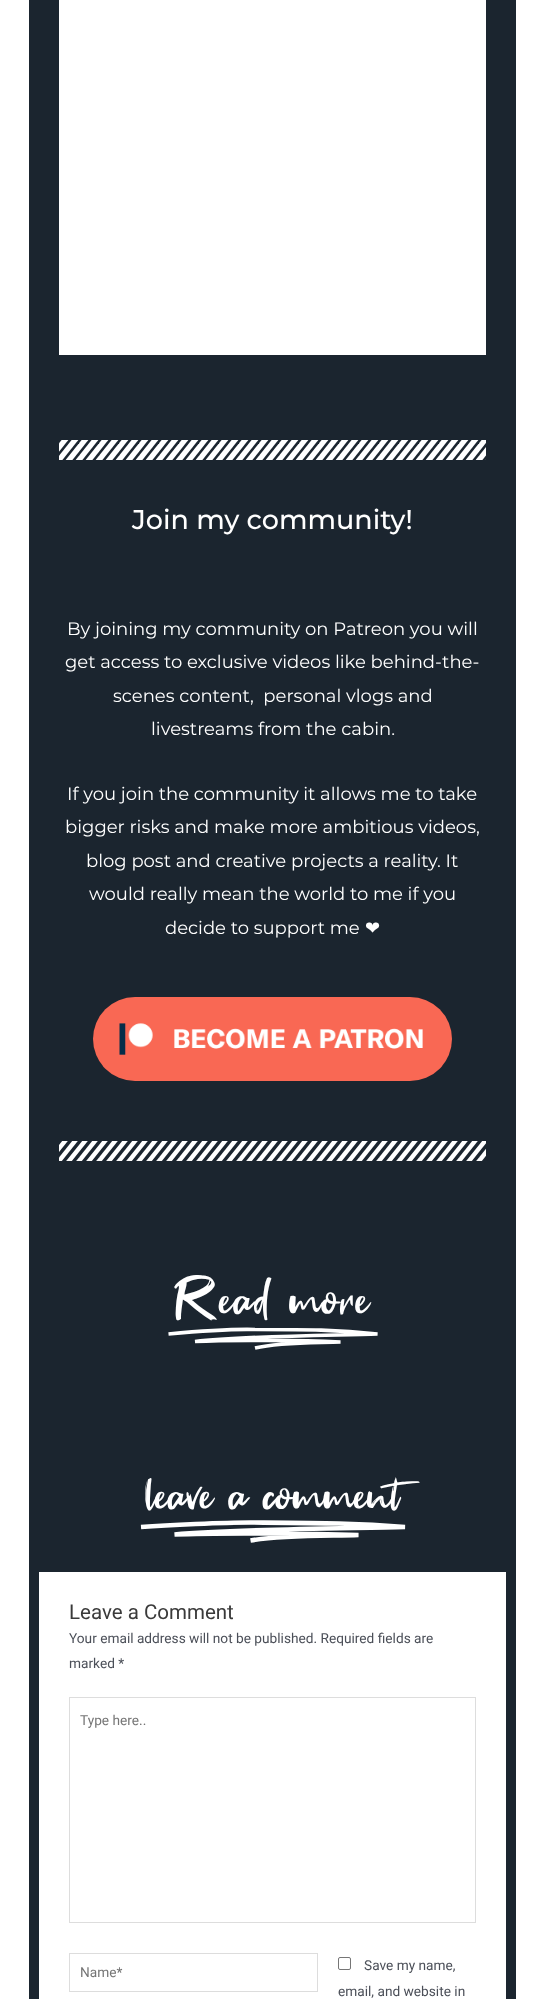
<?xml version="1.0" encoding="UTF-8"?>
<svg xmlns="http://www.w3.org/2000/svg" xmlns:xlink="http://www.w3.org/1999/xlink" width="545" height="1999">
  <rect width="100%" height="100%" fill="#ffffff" />
  <rect x="29" width="487" height="1999" fill="#1b252f" />
  <rect x="59" width="427" height="355" fill="#ffffff" />
  <image x="59" y="440" width="427" height="20" xlink:href="image1.png" />
  <image x="93" y="997" width="359" height="84" xlink:href="image2.png" />
  <image x="59" y="1141" width="427" height="20" xlink:href="image3.png" />
  <path d="M 168.5 1334 c 21.5 -2 65.5 -5 86.5 -4.5 c 53 0 82.5 0 122.5 4.5 c -48 1.5 -134.5 2 -182.5 7.5 c 36 -2 110 -1 145.5 0.5 c -24 1 -59.5 0 -85.5 6" fill="none" stroke="#ffffff" stroke-width="3.7" />
  <path d="M 141 1527 c 27 -2 82.5 -4.5 109.5 -4.5 c 67 0.5 104 0.5 154.5 4.5 c -60.5 1.5 -169.5 2 -230.5 7.5 c 45 -2 139 -1 184 0.5 c -31 1 -75.5 0 -108 5.5" fill="none" stroke="#ffffff" stroke-width="4.6" />
  <rect x="39" y="1572" width="467" height="427" fill="#ffffff" />
  <rect x="69.5" y="1697.5" width="406" height="225" fill="none" stroke="#dddddd" />
  <rect x="69.5" y="1953.5" width="248" height="38" fill="none" stroke="#dddddd" />
  <rect x="338.5" y="1957.5" width="12" height="12" rx="1.5" fill="none" stroke="#767676" />
  <text x="132" y="529" style="font-family: Montserrat; font-size: 27px; font-weight: 500; fill: #ffffff">Join my community!</text>
  <text x="67" y="635" style="font-family: Montserrat; font-size: 18px; fill: #ffffff">By joining my community on Patreon you will</text>
  <text x="65" y="668" style="font-family: Montserrat; font-size: 18px; fill: #ffffff">get access to exclusive videos like behind-the-</text>
  <text x="113" y="702" style="font-family: Montserrat; font-size: 18px; fill: #ffffff" xml:space="preserve">scenes content,  personal vlogs and</text>
  <text x="151" y="735" style="font-family: Montserrat; font-size: 18px; fill: #ffffff">livestreams from the cabin.</text>
  <text x="67" y="800" style="font-family: Montserrat; font-size: 18px; fill: #ffffff">If you join the community it allows me to take</text>
  <text x="65" y="833" style="font-family: Montserrat; font-size: 18px; fill: #ffffff">bigger risks and make more ambitious videos,</text>
  <text x="86" y="867" style="font-family: Montserrat; font-size: 18px; fill: #ffffff">blog post and creative projects a reality. It</text>
  <text x="89" y="900" style="font-family: Montserrat; font-size: 18px; fill: #ffffff">would really mean the world to me if you</text>
  <text x="165" y="934" style="font-family: Montserrat; font-size: 18px; fill: #ffffff">decide to support me</text>
  <text x="365" y="934" style="font-family: DejaVu Sans; font-size: 18px; fill: #ffffff">❤</text>
  <text x="174" y="1321" style="font-family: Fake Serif; font-size: 62px; letter-spacing: 1.25px; fill: #ffffff">Read more</text>
  <text x="146" y="1516" style="font-family: Fake Serif; font-size: 60px; fill: #ffffff">leave a comment</text>
  <text x="69" y="1619" style="font-family: Roboto; font-size: 20.5px; fill: #3a3a3a">Leave a Comment</text>
  <text x="69" y="1643" style="font-family: Roboto; font-size: 13.7px; fill: #4b4f58">Your email address will not be published. Required fields are</text>
  <text x="69" y="1668" style="font-family: Roboto; font-size: 13.7px; fill: #4b4f58">marked *</text>
  <text x="80" y="1725" style="font-family: Roboto; font-size: 13.7px; fill: #757575">Type here..</text>
  <text x="80" y="1977" style="font-family: Roboto; font-size: 13.7px; fill: #757575">Name*</text>
  <text x="364" y="1970" style="font-family: Roboto; font-size: 13.7px; fill: #4b4f58">Save my name,</text>
  <text x="338" y="1996" style="font-family: Roboto; font-size: 13.7px; fill: #4b4f58">email, and website in</text>
</svg>
